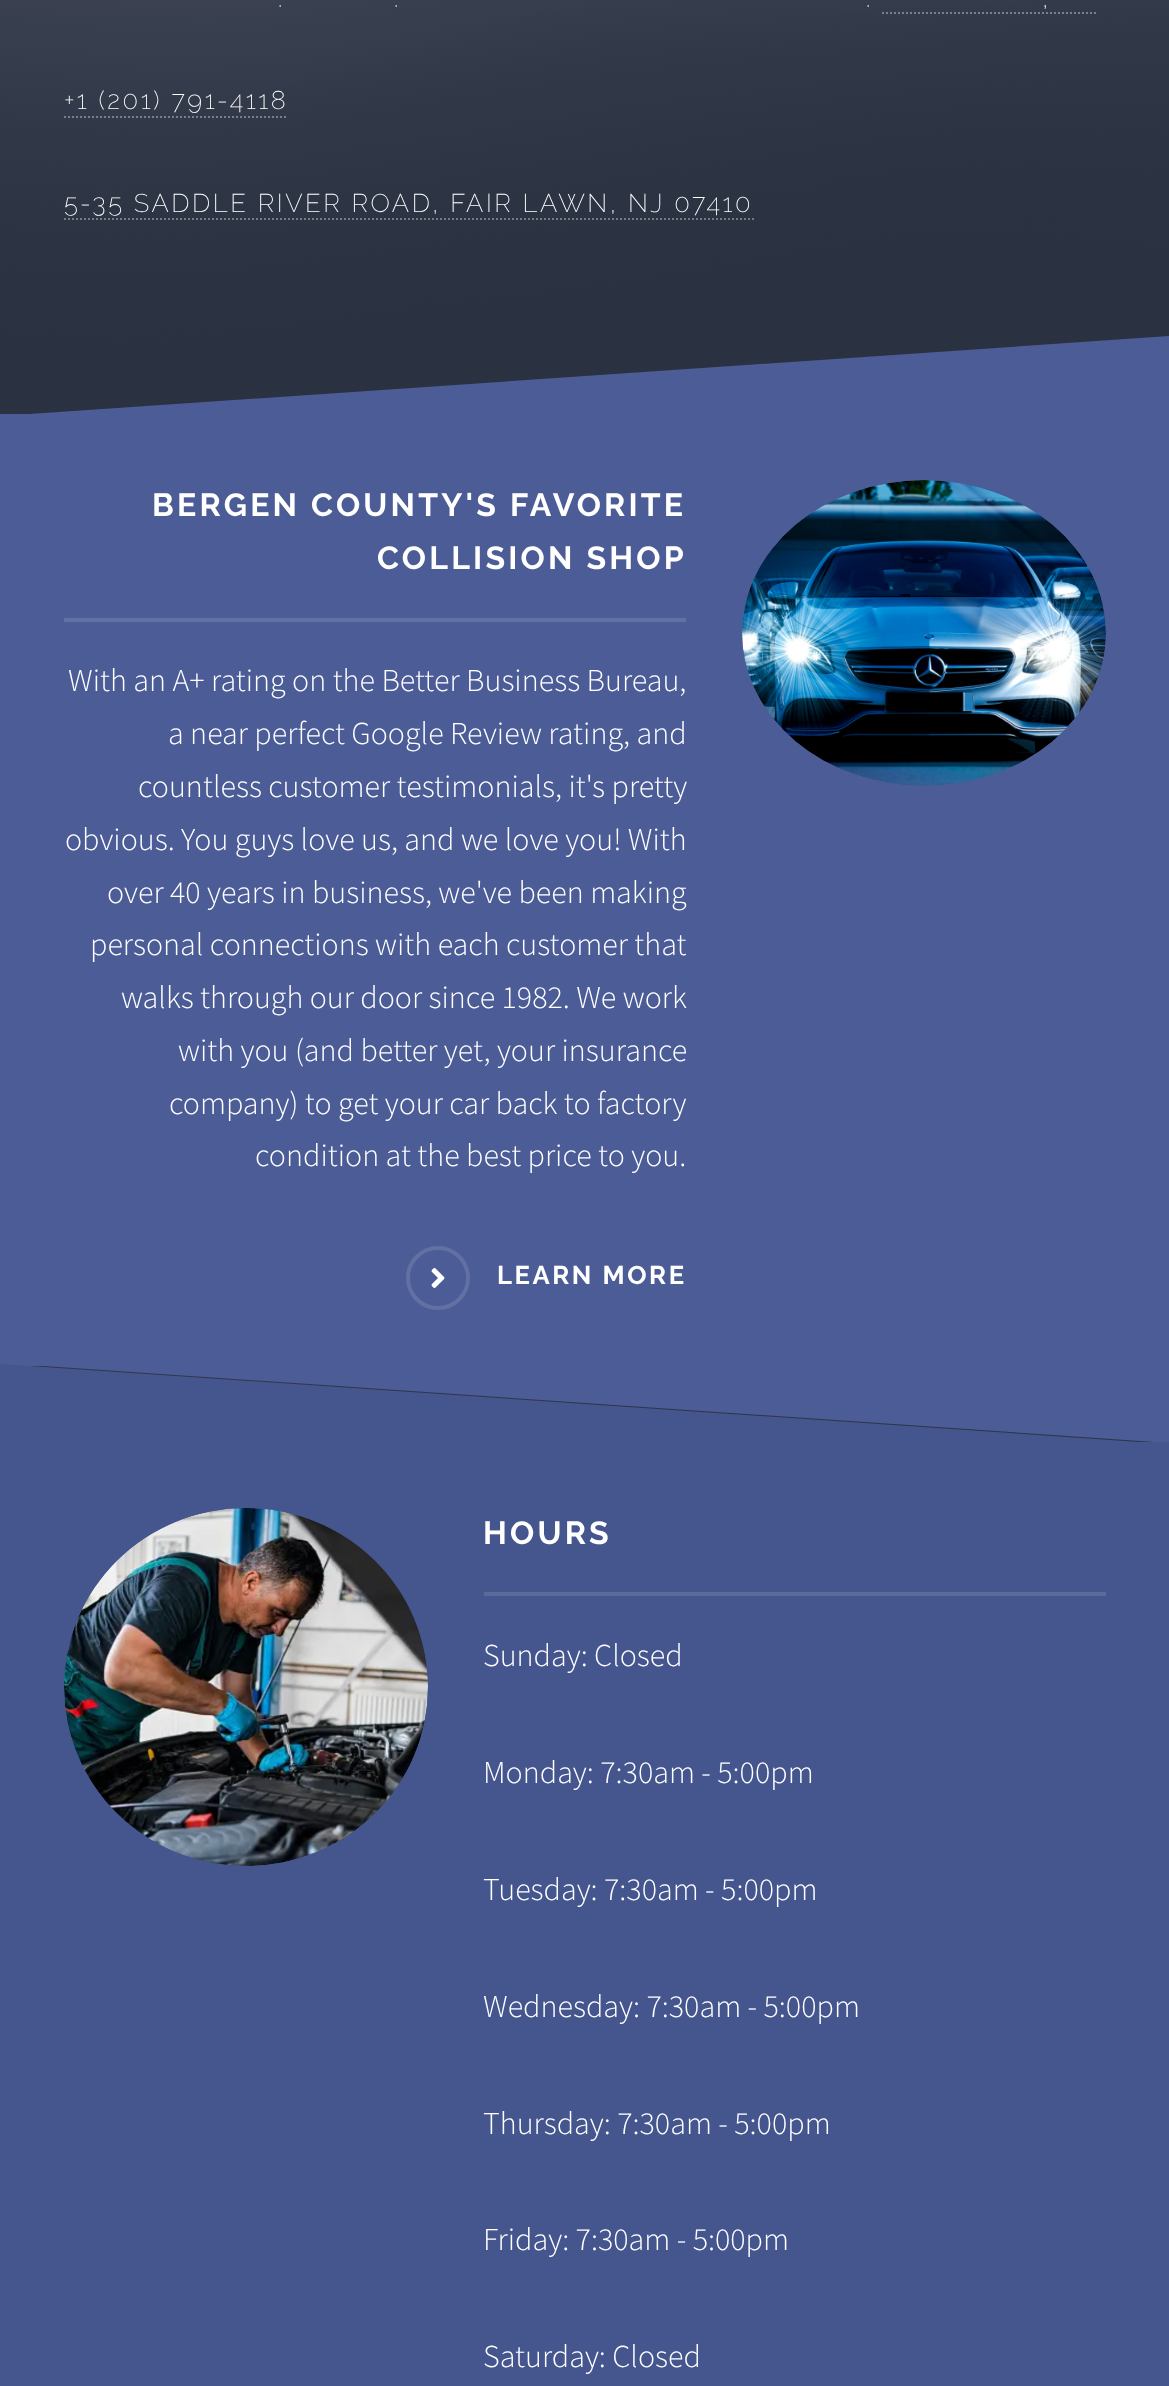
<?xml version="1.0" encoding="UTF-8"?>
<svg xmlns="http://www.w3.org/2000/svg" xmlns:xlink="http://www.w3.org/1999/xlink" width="1169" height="2386">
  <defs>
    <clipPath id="clip1"><rect y="1364" width="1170" height="80" /></clipPath>
  </defs>
  <rect width="100%" height="100%" fill="#ffffff" />
  <image x="30" y="1366" width="1126" height="76" xlink:href="image1.png" />
  <image x="0" y="0" width="1169" height="414" xlink:href="image2.png" />
  <path d="M 882 13 h 214" fill="none" stroke="#7a7f89" stroke-width="2" stroke-dasharray="2 2" />
  <path d="M 64 117 h 224" fill="none" stroke="#7a7e89" stroke-width="2" stroke-dasharray="2 2" />
  <path d="M 64 219 h 690" fill="none" stroke="#ffffff" stroke-opacity="0.35" stroke-width="2" stroke-dasharray="2 2" />
  <rect y="416" width="1169" height="948" fill="#4c5c96" />
  <path d="M 0 416 l 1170 -80 v 80 z" fill="#4c5c96" />
  <rect y="414" width="29" height="2" fill="#4c5c96" />
  <rect x="64" y="618" width="622" height="4" fill="#6270a3" />
  <circle cx="438" cy="1278" r="30" fill="none" stroke="#6270a3" stroke-width="4" />
  <image x="431" y="1268" width="14" height="20" xlink:href="image3.png" />
  <image x="742" y="480" width="364" height="306" xlink:href="image4.png" />
  <g clip-path="url(#clip1)">
    <path d="M 0 1363 l 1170 80 v -80 z" fill="#4c5c96" />
  </g>
  <rect y="1364" width="44" height="2" fill="#4c5c96" />
  <rect y="1444" width="1169" height="942" fill="#45558d" />
  <path d="M 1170 1444 l -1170 -80 v 80 z" fill="#45558d" />
  <rect x="1141" y="1442" width="28" height="2" fill="#45558d" />
  <image x="64" y="1508" width="364" height="358" xlink:href="image5.png" />
  <rect x="484" y="1592" width="622" height="4" fill="#5c6a9b" />
  <text x="278" y="7" style="font-family: Raleway; font-size: 25.6px; font-weight: 200; letter-spacing: 2.55px; fill: #ffffff">.</text>
  <text x="394" y="7" style="font-family: Raleway; font-size: 25.6px; font-weight: 200; letter-spacing: 2.55px; fill: #ffffff">.</text>
  <text x="866" y="7" style="font-family: Raleway; font-size: 25.6px; font-weight: 200; letter-spacing: 2.55px; fill: #ffffff">.</text>
  <text x="1042" y="7" style="font-family: Raleway; font-size: 25.6px; font-weight: 200; letter-spacing: 2.55px; fill: #ffffff">,</text>
  <text x="64" y="109" style="font-family: Raleway; font-size: 25.6px; font-weight: 200; letter-spacing: 2.55px; fill: #ffffff">+1 (201) 791-4118</text>
  <text x="64" y="212" style="font-family: Raleway; font-size: 25.6px; font-weight: 200; letter-spacing: 2.55px; fill: #ffffff">5-35 SADDLE RIVER ROAD, FAIR LAWN, NJ 07410</text>
  <text x="152" y="516" style="font-family: Raleway; font-size: 32px; font-weight: bold; letter-spacing: 3.2px; fill: #ffffff">BERGEN COUNTY'S FAVORITE</text>
  <text x="377" y="569" style="font-family: Raleway; font-size: 32px; font-weight: bold; letter-spacing: 3.2px; fill: #ffffff">COLLISION SHOP</text>
  <text x="68" y="691" style="font-family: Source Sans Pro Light; font-size: 32px; font-weight: 300; fill: #ffffff">With an A+ rating on the Better Business Bureau,</text>
  <text x="168" y="744" style="font-family: Source Sans Pro Light; font-size: 32px; font-weight: 300; fill: #ffffff">a near perfect Google Review rating, and</text>
  <text x="138" y="797" style="font-family: Source Sans Pro Light; font-size: 32px; font-weight: 300; fill: #ffffff">countless customer testimonials, it's pretty</text>
  <text x="65" y="850" style="font-family: Source Sans Pro Light; font-size: 32px; font-weight: 300; fill: #ffffff">obvious. You guys love us, and we love you! With</text>
  <text x="107" y="903" style="font-family: Source Sans Pro Light; font-size: 32px; font-weight: 300; fill: #ffffff">over 40 years in business, we've been making</text>
  <text x="90" y="955" style="font-family: Source Sans Pro Light; font-size: 32px; font-weight: 300; fill: #ffffff">personal connections with each customer that</text>
  <text x="121" y="1008" style="font-family: Source Sans Pro Light; font-size: 32px; font-weight: 300; fill: #ffffff">walks through our door since 1982. We work</text>
  <text x="178" y="1061" style="font-family: Source Sans Pro Light; font-size: 32px; font-weight: 300; fill: #ffffff">with you (and better yet, your insurance</text>
  <text x="169" y="1114" style="font-family: Source Sans Pro Light; font-size: 32px; font-weight: 300; fill: #ffffff">company) to get your car back to factory</text>
  <text x="255" y="1166" style="font-family: Source Sans Pro Light; font-size: 32px; font-weight: 300; fill: #ffffff">condition at the best price to you.</text>
  <text x="497" y="1284" style="font-family: Raleway; font-size: 25.6px; font-weight: bold; letter-spacing: 2.55px; fill: #ffffff">LEARN MORE</text>
  <text x="483" y="1544" style="font-family: Raleway; font-size: 32px; font-weight: bold; letter-spacing: 3.2px; fill: #ffffff">HOURS</text>
  <text x="483" y="1666" style="font-family: Source Sans Pro Light; font-size: 32px; font-weight: 300; fill: #ffffff">Sunday: Closed</text>
  <text x="483" y="1783" style="font-family: Source Sans Pro Light; font-size: 32px; font-weight: 300; fill: #ffffff">Monday: 7:30am - 5:00pm</text>
  <text x="483" y="1900" style="font-family: Source Sans Pro Light; font-size: 32px; font-weight: 300; fill: #ffffff">Tuesday: 7:30am - 5:00pm</text>
  <text x="483" y="2017" style="font-family: Source Sans Pro Light; font-size: 32px; font-weight: 300; fill: #ffffff">Wednesday: 7:30am - 5:00pm</text>
  <text x="483" y="2134" style="font-family: Source Sans Pro Light; font-size: 32px; font-weight: 300; fill: #ffffff">Thursday: 7:30am - 5:00pm</text>
  <text x="483" y="2250" style="font-family: Source Sans Pro Light; font-size: 32px; font-weight: 300; fill: #ffffff">Friday: 7:30am - 5:00pm</text>
  <text x="483" y="2367" style="font-family: Source Sans Pro Light; font-size: 32px; font-weight: 300; fill: #ffffff">Saturday: Closed</text>
</svg>
